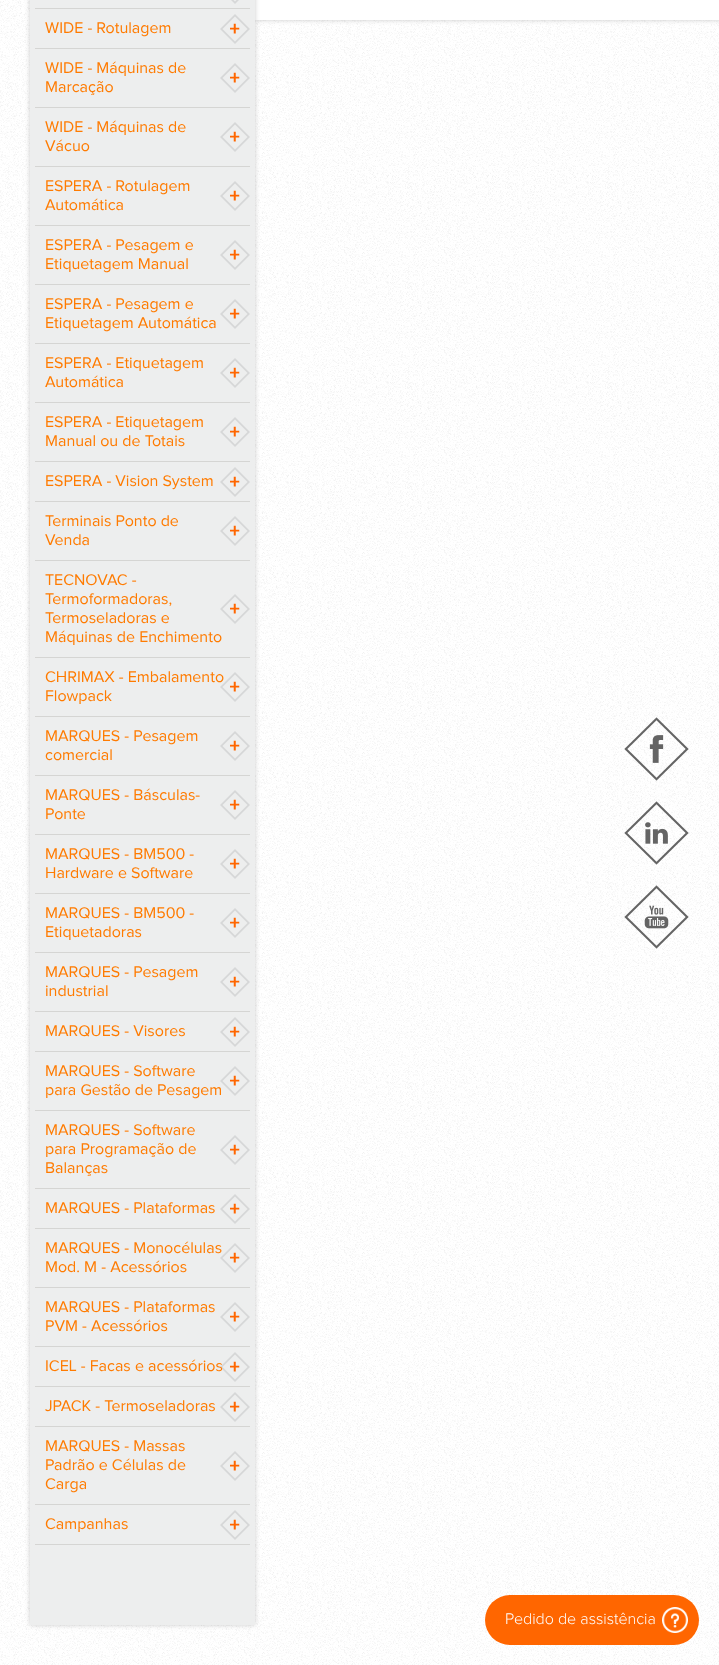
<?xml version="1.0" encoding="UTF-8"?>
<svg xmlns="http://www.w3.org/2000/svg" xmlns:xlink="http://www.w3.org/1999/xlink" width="719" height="1665">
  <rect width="100%" height="100%" fill="#ffffff" />
  <image x="0" y="0" width="719" height="1665" xlink:href="image1.png" />
  <rect x="255" y="-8" width="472" height="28" fill="#000000" fill-opacity="0.2" filter="blur(2.5px)" />
  <rect x="255" width="464" height="20" fill="#ffffff" />
  <rect x="30" y="-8" width="225" height="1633" fill="#000000" fill-opacity="0.2" filter="blur(2.5px)" />
  <rect x="30" width="225" height="1625" fill="#edeeee" />
  <rect x="35" y="8" width="215" height="1" fill="#d5d5d3" />
  <image x="231" y="0" width="8" height="4" xlink:href="image2.png" />
  <rect x="35" y="48" width="215" height="1" fill="#d5d5d3" />
  <image x="220" y="14" width="30" height="30" xlink:href="image3.png" />
  <rect x="35" y="107" width="215" height="1" fill="#d5d5d3" />
  <image x="220" y="63" width="30" height="30" xlink:href="image3.png" />
  <rect x="35" y="166" width="215" height="1" fill="#d5d5d3" />
  <image x="220" y="122" width="30" height="30" xlink:href="image3.png" />
  <rect x="35" y="225" width="215" height="1" fill="#d5d5d3" />
  <image x="220" y="181" width="30" height="30" xlink:href="image3.png" />
  <rect x="35" y="284" width="215" height="1" fill="#d5d5d3" />
  <image x="220" y="240" width="30" height="30" xlink:href="image3.png" />
  <rect x="35" y="343" width="215" height="1" fill="#d5d5d3" />
  <image x="220" y="299" width="30" height="30" xlink:href="image3.png" />
  <rect x="35" y="402" width="215" height="1" fill="#d5d5d3" />
  <image x="220" y="358" width="30" height="30" xlink:href="image3.png" />
  <rect x="35" y="461" width="215" height="1" fill="#d5d5d3" />
  <image x="220" y="417" width="30" height="30" xlink:href="image3.png" />
  <rect x="35" y="501" width="215" height="1" fill="#d5d5d3" />
  <image x="220" y="467" width="30" height="30" xlink:href="image3.png" />
  <rect x="35" y="560" width="215" height="1" fill="#d5d5d3" />
  <image x="220" y="516" width="30" height="30" xlink:href="image3.png" />
  <rect x="35" y="657" width="215" height="1" fill="#d5d5d3" />
  <image x="220" y="594" width="30" height="30" xlink:href="image3.png" />
  <rect x="35" y="716" width="215" height="1" fill="#d5d5d3" />
  <image x="220" y="672" width="30" height="30" xlink:href="image3.png" />
  <rect x="35" y="775" width="215" height="1" fill="#d5d5d3" />
  <image x="220" y="731" width="30" height="30" xlink:href="image3.png" />
  <rect x="35" y="834" width="215" height="1" fill="#d5d5d3" />
  <image x="220" y="790" width="30" height="30" xlink:href="image3.png" />
  <rect x="35" y="893" width="215" height="1" fill="#d5d5d3" />
  <image x="220" y="849" width="30" height="30" xlink:href="image3.png" />
  <rect x="35" y="952" width="215" height="1" fill="#d5d5d3" />
  <image x="220" y="908" width="30" height="30" xlink:href="image3.png" />
  <rect x="35" y="1011" width="215" height="1" fill="#d5d5d3" />
  <image x="220" y="967" width="30" height="30" xlink:href="image3.png" />
  <rect x="35" y="1051" width="215" height="1" fill="#d5d5d3" />
  <image x="220" y="1017" width="30" height="30" xlink:href="image3.png" />
  <rect x="35" y="1110" width="215" height="1" fill="#d5d5d3" />
  <image x="220" y="1066" width="30" height="30" xlink:href="image3.png" />
  <rect x="35" y="1188" width="215" height="1" fill="#d5d5d3" />
  <image x="220" y="1135" width="30" height="30" xlink:href="image3.png" />
  <rect x="35" y="1228" width="215" height="1" fill="#d5d5d3" />
  <image x="220" y="1194" width="30" height="30" xlink:href="image3.png" />
  <rect x="35" y="1287" width="215" height="1" fill="#d5d5d3" />
  <image x="220" y="1243" width="30" height="30" xlink:href="image3.png" />
  <rect x="35" y="1346" width="215" height="1" fill="#d5d5d3" />
  <image x="220" y="1302" width="30" height="30" xlink:href="image3.png" />
  <rect x="35" y="1386" width="215" height="1" fill="#d5d5d3" />
  <image x="220" y="1352" width="30" height="30" xlink:href="image3.png" />
  <rect x="35" y="1426" width="215" height="1" fill="#d5d5d3" />
  <image x="220" y="1392" width="30" height="30" xlink:href="image3.png" />
  <rect x="35" y="1504" width="215" height="1" fill="#d5d5d3" />
  <image x="220" y="1451" width="30" height="30" xlink:href="image3.png" />
  <rect x="35" y="1544" width="215" height="1" fill="#d5d5d3" />
  <image x="220" y="1510" width="30" height="30" xlink:href="image3.png" />
  <image x="624" y="717" width="65" height="64" xlink:href="image4.png" />
  <image x="624" y="801" width="65" height="64" xlink:href="image5.png" />
  <image x="624" y="885" width="65" height="64" xlink:href="image6.png" />
  <rect x="485" y="1595" width="214" height="50" rx="25" fill="#ff6600" />
  <image x="662" y="1607" width="26" height="26" xlink:href="image7.png" />
  <text x="45" y="33" style="font-family: Proxima Nova; font-size: 16px; fill: #ff7b00">WIDE - Rotulagem</text>
  <text x="45" y="73" style="font-family: Proxima Nova; font-size: 16px; fill: #ff7b00">WIDE - Máquinas de</text>
  <text x="45" y="92" style="font-family: Proxima Nova; font-size: 16px; fill: #ff7b00">Marcação</text>
  <text x="45" y="132" style="font-family: Proxima Nova; font-size: 16px; fill: #ff7b00">WIDE - Máquinas de</text>
  <text x="45" y="151" style="font-family: Proxima Nova; font-size: 16px; fill: #ff7b00">Vácuo</text>
  <text x="45" y="191" style="font-family: Proxima Nova; font-size: 16px; fill: #ff7b00">ESPERA - Rotulagem</text>
  <text x="45" y="210" style="font-family: Proxima Nova; font-size: 16px; fill: #ff7b00">Automática</text>
  <text x="45" y="250" style="font-family: Proxima Nova; font-size: 16px; fill: #ff7b00">ESPERA - Pesagem e</text>
  <text x="45" y="269" style="font-family: Proxima Nova; font-size: 16px; fill: #ff7b00">Etiquetagem Manual</text>
  <text x="45" y="309" style="font-family: Proxima Nova; font-size: 16px; fill: #ff7b00">ESPERA - Pesagem e</text>
  <text x="45" y="328" style="font-family: Proxima Nova; font-size: 16px; fill: #ff7b00">Etiquetagem Automática</text>
  <text x="45" y="368" style="font-family: Proxima Nova; font-size: 16px; fill: #ff7b00">ESPERA - Etiquetagem</text>
  <text x="45" y="387" style="font-family: Proxima Nova; font-size: 16px; fill: #ff7b00">Automática</text>
  <text x="45" y="427" style="font-family: Proxima Nova; font-size: 16px; fill: #ff7b00">ESPERA - Etiquetagem</text>
  <text x="45" y="446" style="font-family: Proxima Nova; font-size: 16px; fill: #ff7b00">Manual ou de Totais</text>
  <text x="45" y="486" style="font-family: Proxima Nova; font-size: 16px; fill: #ff7b00">ESPERA - Vision System</text>
  <text x="45" y="526" style="font-family: Proxima Nova; font-size: 16px; fill: #ff7b00">Terminais Ponto de</text>
  <text x="45" y="545" style="font-family: Proxima Nova; font-size: 16px; fill: #ff7b00">Venda</text>
  <text x="45" y="585" style="font-family: Proxima Nova; font-size: 16px; fill: #ff7b00">TECNOVAC -</text>
  <text x="45" y="604" style="font-family: Proxima Nova; font-size: 16px; fill: #ff7b00">Termoformadoras,</text>
  <text x="45" y="623" style="font-family: Proxima Nova; font-size: 16px; fill: #ff7b00">Termoseladoras e</text>
  <text x="45" y="642" style="font-family: Proxima Nova; font-size: 16px; fill: #ff7b00">Máquinas de Enchimento</text>
  <text x="45" y="682" style="font-family: Proxima Nova; font-size: 16px; fill: #ff7b00">CHRIMAX - Embalamento</text>
  <text x="45" y="701" style="font-family: Proxima Nova; font-size: 16px; fill: #ff7b00">Flowpack</text>
  <text x="45" y="741" style="font-family: Proxima Nova; font-size: 16px; fill: #ff7b00">MARQUES - Pesagem</text>
  <text x="45" y="760" style="font-family: Proxima Nova; font-size: 16px; fill: #ff7b00">comercial</text>
  <text x="45" y="800" style="font-family: Proxima Nova; font-size: 16px; fill: #ff7b00">MARQUES - Básculas-</text>
  <text x="45" y="819" style="font-family: Proxima Nova; font-size: 16px; fill: #ff7b00">Ponte</text>
  <text x="45" y="859" style="font-family: Proxima Nova; font-size: 16px; fill: #ff7b00">MARQUES - BM500 -</text>
  <text x="45" y="878" style="font-family: Proxima Nova; font-size: 16px; fill: #ff7b00">Hardware e Software</text>
  <text x="45" y="918" style="font-family: Proxima Nova; font-size: 16px; fill: #ff7b00">MARQUES - BM500 -</text>
  <text x="45" y="937" style="font-family: Proxima Nova; font-size: 16px; fill: #ff7b00">Etiquetadoras</text>
  <text x="45" y="977" style="font-family: Proxima Nova; font-size: 16px; fill: #ff7b00">MARQUES - Pesagem</text>
  <text x="45" y="996" style="font-family: Proxima Nova; font-size: 16px; fill: #ff7b00">industrial</text>
  <text x="45" y="1036" style="font-family: Proxima Nova; font-size: 16px; fill: #ff7b00">MARQUES - Visores</text>
  <text x="45" y="1076" style="font-family: Proxima Nova; font-size: 16px; fill: #ff7b00">MARQUES - Software</text>
  <text x="45" y="1095" style="font-family: Proxima Nova; font-size: 16px; fill: #ff7b00">para Gestão de Pesagem</text>
  <text x="45" y="1135" style="font-family: Proxima Nova; font-size: 16px; fill: #ff7b00">MARQUES - Software</text>
  <text x="45" y="1154" style="font-family: Proxima Nova; font-size: 16px; fill: #ff7b00">para Programação de</text>
  <text x="45" y="1173" style="font-family: Proxima Nova; font-size: 16px; fill: #ff7b00">Balanças</text>
  <text x="45" y="1213" style="font-family: Proxima Nova; font-size: 16px; fill: #ff7b00">MARQUES - Plataformas</text>
  <text x="45" y="1253" style="font-family: Proxima Nova; font-size: 16px; fill: #ff7b00">MARQUES - Monocélulas</text>
  <text x="45" y="1272" style="font-family: Proxima Nova; font-size: 16px; fill: #ff7b00">Mod. M - Acessórios</text>
  <text x="45" y="1312" style="font-family: Proxima Nova; font-size: 16px; fill: #ff7b00">MARQUES - Plataformas</text>
  <text x="45" y="1331" style="font-family: Proxima Nova; font-size: 16px; fill: #ff7b00">PVM - Acessórios</text>
  <text x="45" y="1371" style="font-family: Proxima Nova; font-size: 16px; fill: #ff7b00">ICEL - Facas e acessórios</text>
  <text x="45" y="1411" style="font-family: Proxima Nova; font-size: 16px; fill: #ff7b00">JPACK - Termoseladoras</text>
  <text x="45" y="1451" style="font-family: Proxima Nova; font-size: 16px; fill: #ff7b00">MARQUES - Massas</text>
  <text x="45" y="1470" style="font-family: Proxima Nova; font-size: 16px; fill: #ff7b00">Padrão e Células de</text>
  <text x="45" y="1489" style="font-family: Proxima Nova; font-size: 16px; fill: #ff7b00">Carga</text>
  <text x="45" y="1529" style="font-family: Proxima Nova; font-size: 16px; fill: #ff7b00">Campanhas</text>
  <text x="505" y="1624" style="font-family: Proxima Nova; font-size: 16px; font-weight: 300; fill: #ffffff">Pedido de assistência</text>
</svg>
